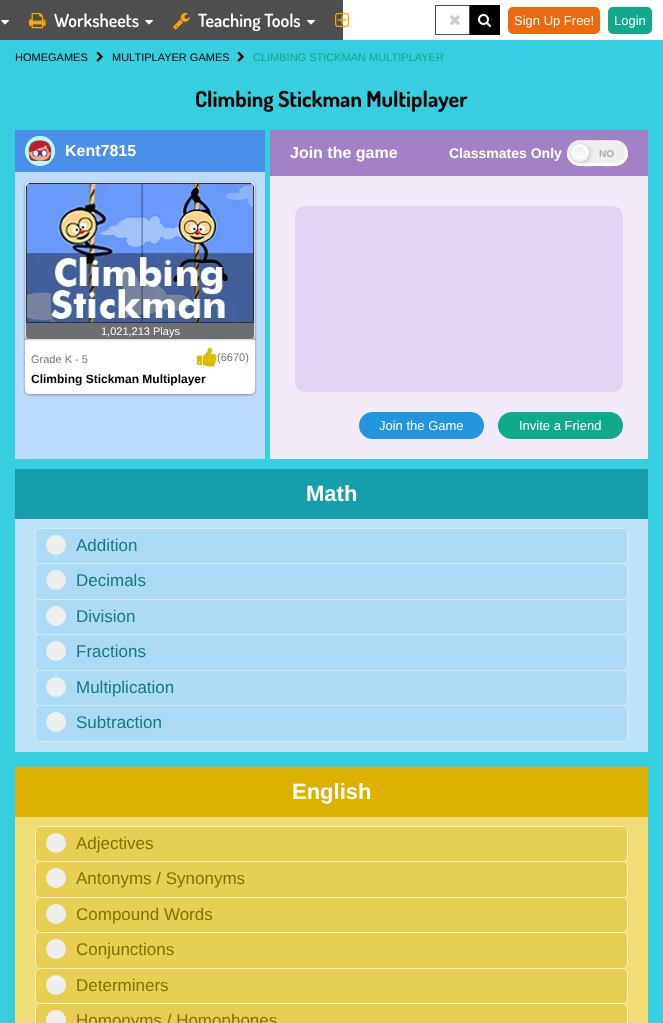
<?xml version="1.0" encoding="UTF-8"?>
<svg xmlns="http://www.w3.org/2000/svg" xmlns:xlink="http://www.w3.org/1999/xlink" width="663" height="1023">
  <defs>
    <linearGradient id="g1" gradientUnits="userSpaceOnUse" x1="598" y1="140" x2="598" y2="166"><stop offset="0" stop-color="#eeeeee" /><stop offset="0.96" stop-color="#ffffff" /></linearGradient>
    <linearGradient id="g2" gradientUnits="userSpaceOnUse" x1="580" y1="144" x2="580" y2="162"><stop offset="0.4" stop-color="#ffffff" /><stop offset="1" stop-color="#f0f0f0" /></linearGradient>
    <linearGradient id="g3" gradientUnits="userSpaceOnUse" x1="580" y1="147" x2="580" y2="159"><stop offset="0" stop-color="#eeeeee" /><stop offset="1" stop-color="#ffffff" /></linearGradient>
  </defs>
  <rect width="100%" height="100%" fill="#ffffff" />
  <rect width="343" height="40" fill="#4e4e4e" />
  <image x="1" y="20" width="8" height="5" xlink:href="image1.png" />
  <image x="29" y="12" width="17" height="17" xlink:href="image2.png" />
  <image x="145" y="20" width="8" height="5" xlink:href="image1.png" />
  <image x="173" y="12" width="17" height="18" xlink:href="image3.png" />
  <image x="307" y="20" width="8" height="5" xlink:href="image1.png" />
  <image x="335" y="12" width="15" height="15" xlink:href="image4.png" />
  <rect x="435.5" y="5.5" width="34" height="29" fill="none" stroke="#4e4e4e" />
  <image x="450" y="15" width="10" height="10" xlink:href="image5.png" />
  <rect x="470" y="5" width="30" height="30" fill="#000000" />
  <image x="478" y="14" width="13" height="13" xlink:href="image6.png" />
  <rect x="508" y="7" width="92" height="27" rx="5" fill="#eb690f" />
  <rect x="608" y="7" width="44" height="27" rx="5" fill="#10a98a" />
  <rect y="40" width="663" height="983" fill="#35cfe1" />
  <image x="96" y="51" width="7" height="11" xlink:href="image7.png" />
  <image x="237" y="51" width="7" height="11" xlink:href="image7.png" />
  <rect x="15" y="172" width="250" height="287" fill="#bddaff" />
  <rect x="15" y="130" width="250" height="42" fill="#4a90e9" />
  <circle cx="40" cy="151" r="15" fill="#d4f4fe" />
  <image x="25" y="136" width="30" height="30" xlink:href="image8.png" />
  <rect x="25" y="183" width="230" height="212" rx="5" fill="#000000" fill-opacity="0.24" filter="blur(1px)" />
  <rect x="25" y="183" width="230" height="212" rx="5" fill="#000000" fill-opacity="0.12" filter="blur(1.5px)" />
  <path d="M 25 340 h 230 v 49 c 0 3 -2 5 -5 5 h -220 c -3 0 -5 -2 -5 -5 z" fill="#ffffff" />
  <rect x="25" y="183" width="230" height="158" rx="4" fill="#000000" fill-opacity="0.07" filter="blur(1px)" />
  <rect x="25.5" y="182.5" width="229" height="157" rx="3.5" fill="#ffffff" stroke="#dddddd" />
  <image x="26" y="183" width="228" height="140" xlink:href="image9.png" />
  <image x="26" y="183" width="228" height="5" xlink:href="image10.png" />
  <path d="M 26 323 h 228 v 13 c 0 1.5 -1.5 3 -3 3 h -222 c -1.5 0 -3 -1.5 -3 -3 z" fill="#6d6e70" />
  <image x="197" y="347" width="20" height="20" xlink:href="image11.png" />
  <rect x="270" y="176" width="378" height="283" fill="#f2ebf7" />
  <rect x="270" y="130" width="378" height="46" fill="#a281c9" />
  <rect x="567" y="140" width="61" height="26" rx="13" fill="url(#g1)" />
  <path d="M 580 141 h 35 c 7 0 13 6 13 13 c 1 -17 -20 -14 -30 -14 c -11 0 -32 -3 -31 14 c 0 -7 6 -13 13 -13 z" fill="#000000" fill-opacity="0.05" />
  <path d="M 567 152 c -1 17 20 14 31 14 c 10 0 31 3 30 -14 c -1 16 -20 13 -30 13 c -11 0 -30 3 -31 -13 z" fill="#ffffff" />
  <rect x="570" y="143" width="55" height="20" rx="10" fill="#eceeef" />
  <rect x="572" y="145" width="18" height="18" rx="9" fill="#000000" fill-opacity="0.2" filter="blur(2.5px)" />
  <circle cx="580" cy="153" r="9" fill="url(#g2)" />
  <circle cx="580" cy="153" r="6" fill="url(#g3)" />
  <rect x="295" y="206" width="328" height="186" rx="10" fill="#e1d3f1" />
  <rect x="359" y="412" width="125" height="27" rx="13.5" fill="#2295dc" />
  <rect x="498" y="412" width="125" height="27" rx="13.5" fill="#10a98a" />
  <rect x="15" y="519" width="633" height="233" fill="#bee3f6" />
  <rect x="15" y="469" width="633" height="50" fill="#179eac" />
  <rect x="35.5" y="528.5" width="592" height="35" rx="4.5" fill="#acdcf5" stroke="#cfeefd" />
  <circle cx="56" cy="545" r="10" fill="#eeeeee" />
  <rect x="35.5" y="563.5" width="592" height="36" rx="4.5" fill="#acdcf5" stroke="#cfeefd" />
  <circle cx="56" cy="580" r="10" fill="#eeeeee" />
  <rect x="35.5" y="599.5" width="592" height="35" rx="4.5" fill="#acdcf5" stroke="#cfeefd" />
  <circle cx="56" cy="616" r="10" fill="#eeeeee" />
  <rect x="35.5" y="634.5" width="592" height="36" rx="4.5" fill="#acdcf5" stroke="#cfeefd" />
  <circle cx="56" cy="651" r="10" fill="#eeeeee" />
  <rect x="35.5" y="670.5" width="592" height="35" rx="4.5" fill="#acdcf5" stroke="#cfeefd" />
  <circle cx="56" cy="687" r="10" fill="#eeeeee" />
  <rect x="35.5" y="705.5" width="592" height="36" rx="4.5" fill="#acdcf5" stroke="#cfeefd" />
  <circle cx="56" cy="722" r="10" fill="#eeeeee" />
  <rect x="15" y="817" width="633" height="206" fill="#f0dd76" />
  <rect x="15" y="767" width="633" height="50" fill="#ddb100" />
  <rect x="35.5" y="826.5" width="592" height="35" rx="4.5" fill="#e6cf53" stroke="#faf1bc" />
  <circle cx="56" cy="843" r="10" fill="#eeeeee" />
  <rect x="35.5" y="861.5" width="592" height="36" rx="4.5" fill="#e6cf53" stroke="#faf1bc" />
  <circle cx="56" cy="878" r="10" fill="#eeeeee" />
  <rect x="35.5" y="897.5" width="592" height="35" rx="4.5" fill="#e6cf53" stroke="#faf1bc" />
  <circle cx="56" cy="914" r="10" fill="#eeeeee" />
  <rect x="35.5" y="932.5" width="592" height="36" rx="4.5" fill="#e6cf53" stroke="#faf1bc" />
  <circle cx="56" cy="949" r="10" fill="#eeeeee" />
  <rect x="35.5" y="968.5" width="592" height="35" rx="4.5" fill="#e6cf53" stroke="#faf1bc" />
  <circle cx="56" cy="985" r="10" fill="#eeeeee" />
  <rect x="35.5" y="1003.5" width="592" height="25" rx="4.5" fill="#e6cf53" stroke="#faf1bc" />
  <circle cx="56" cy="1020" r="10" fill="#eeeeee" />
  <text x="54" y="27" style="font-family: Dosis; font-size: 18px; font-weight: 600; fill: #ffffff">Worksheets</text>
  <text x="198" y="27" style="font-family: Dosis; font-size: 18px; font-weight: 600; fill: #ffffff">Teaching Tools</text>
  <text x="514" y="25" style="font-family: Liberation Sans; font-size: 13px; fill: #ffffff">Sign Up Free!</text>
  <text x="614" y="25" style="font-family: Liberation Sans; font-size: 13px; fill: #ffffff">Login</text>
  <text x="15" y="61" style="font-family: Liberation Sans; font-size: 11px; fill: #000000">HOMEGAMES</text>
  <text x="112" y="61" style="font-family: Liberation Sans; font-size: 11px; fill: #000000">MULTIPLAYER GAMES</text>
  <text x="253" y="61" style="font-family: Liberation Sans; font-size: 11px; fill: #10a98a">CLIMBING STICKMAN MULTIPLAYER</text>
  <text x="195" y="107" style="font-family: Dosis; font-size: 22px; font-weight: bold; fill: #000000">Climbing Stickman Multiplayer</text>
  <text x="65" y="156" style="font-family: Liberation Sans; font-size: 16px; font-weight: bold; fill: #ffffff">Kent7815</text>
  <text x="101" y="335" style="font-family: Liberation Sans; font-size: 11px; fill: #ffffff">1,021,213 Plays</text>
  <text x="31" y="363" style="font-family: Liberation Sans; font-size: 11px; fill: #757577">Grade K - 5</text>
  <text x="217" y="361" style="font-family: Liberation Sans; font-size: 11px; fill: #757577">(6670)</text>
  <text x="31" y="383" style="font-family: Liberation Sans; font-size: 12px; font-weight: bold; fill: #000000">Climbing Stickman Multiplayer</text>
  <text x="290" y="158" style="font-family: Liberation Sans; font-size: 16px; font-weight: bold; fill: #ffffff">Join the game</text>
  <text x="449" y="158" style="font-family: Liberation Sans; font-size: 14px; font-weight: bold; fill: #ffffff">Classmates Only</text>
  <text x="599" y="157" style="font-family: Liberation Sans; font-size: 10px; font-weight: bold; fill: #aaaaaa">NO</text>
  <text x="379" y="430" style="font-family: Liberation Sans; font-size: 13px; fill: #ffffff">Join the Game</text>
  <text x="519" y="430" style="font-family: Liberation Sans; font-size: 13px; fill: #ffffff">Invite a Friend</text>
  <text x="306" y="501" style="font-family: Liberation Sans; font-size: 22px; font-weight: bold; fill: #ffffff">Math</text>
  <text x="76" y="551" style="font-family: Liberation Sans; font-size: 17px; fill: #12798a">Addition</text>
  <text x="76" y="586" style="font-family: Liberation Sans; font-size: 17px; fill: #12798a">Decimals</text>
  <text x="76" y="622" style="font-family: Liberation Sans; font-size: 17px; fill: #12798a">Division</text>
  <text x="76" y="657" style="font-family: Liberation Sans; font-size: 17px; fill: #12798a">Fractions</text>
  <text x="76" y="693" style="font-family: Liberation Sans; font-size: 17px; fill: #12798a">Multiplication</text>
  <text x="76" y="728" style="font-family: Liberation Sans; font-size: 17px; fill: #12798a">Subtraction</text>
  <text x="292" y="799" style="font-family: Liberation Sans; font-size: 22px; font-weight: bold; fill: #ffffff">English</text>
  <text x="76" y="849" style="font-family: Liberation Sans; font-size: 17px; fill: #857000">Adjectives</text>
  <text x="76" y="884" style="font-family: Liberation Sans; font-size: 17px; fill: #857000">Antonyms / Synonyms</text>
  <text x="76" y="920" style="font-family: Liberation Sans; font-size: 17px; fill: #857000">Compound Words</text>
  <text x="76" y="955" style="font-family: Liberation Sans; font-size: 17px; fill: #857000">Conjunctions</text>
  <text x="76" y="991" style="font-family: Liberation Sans; font-size: 17px; fill: #857000">Determiners</text>
  <text x="76" y="1026" style="font-family: Liberation Sans; font-size: 17px; fill: #857000">Homonyms / Homophones</text>
</svg>
